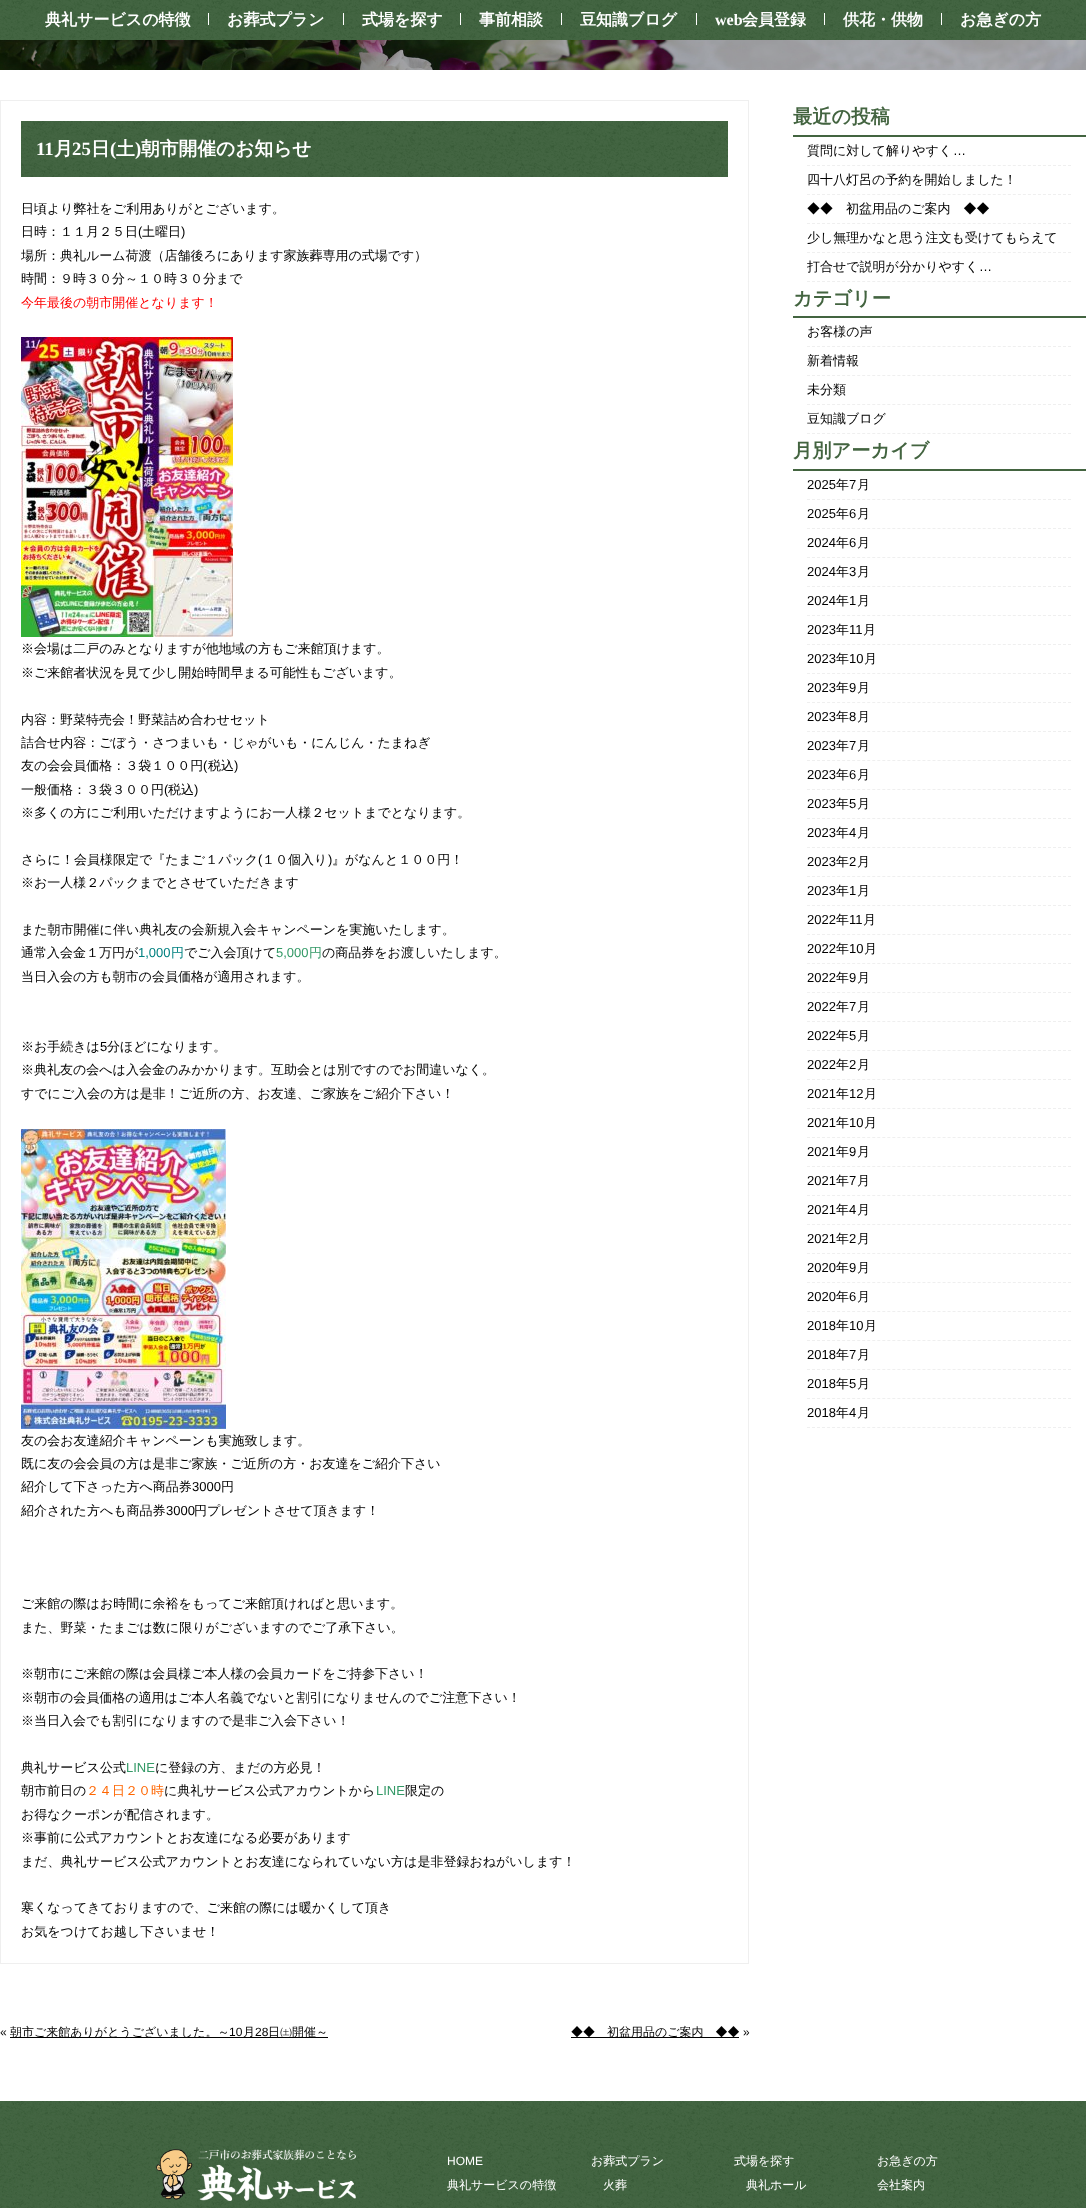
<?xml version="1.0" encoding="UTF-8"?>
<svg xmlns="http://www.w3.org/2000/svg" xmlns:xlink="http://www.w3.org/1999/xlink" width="1086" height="2208">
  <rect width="100%" height="100%" fill="#ffffff" />
  <image x="0" y="0" width="1086" height="40" xlink:href="image1.png" />
  <rect x="208" y="13" width="1" height="12" fill="#ffffff" />
  <rect x="343" y="13" width="1" height="12" fill="#ffffff" />
  <rect x="460" y="13" width="1" height="12" fill="#ffffff" />
  <rect x="561" y="13" width="1" height="12" fill="#ffffff" />
  <rect x="696" y="13" width="1" height="12" fill="#ffffff" />
  <rect x="824" y="13" width="1" height="12" fill="#ffffff" />
  <rect x="941" y="13" width="1" height="12" fill="#ffffff" />
  <image x="0" y="40" width="1086" height="30" xlink:href="image2.png" />
  <rect x="0.5" y="100.5" width="748" height="1863" fill="none" stroke="#efefef" />
  <image x="21" y="121" width="707" height="56" xlink:href="image3.png" />
  <image x="21" y="337" width="212" height="300" xlink:href="image4.png" />
  <image x="21" y="1129" width="205" height="300" xlink:href="image5.png" />
  <rect x="10" y="2037" width="318" height="1" fill="#000000" />
  <rect x="571" y="2037" width="168" height="1" fill="#000000" />
  <rect x="793" y="135" width="293" height="2" fill="#436440" />
  <path d="M 807 165.5 h 264" fill="none" stroke="#efefef" stroke-dasharray="3 2.02" />
  <path d="M 807 194.5 h 264" fill="none" stroke="#efefef" stroke-dasharray="3 2.02" />
  <path d="M 807 223.5 h 264" fill="none" stroke="#efefef" stroke-dasharray="3 2.02" />
  <path d="M 807 252.5 h 264" fill="none" stroke="#efefef" stroke-dasharray="3 2.02" />
  <path d="M 807 281.5 h 264" fill="none" stroke="#efefef" stroke-dasharray="3 2.02" />
  <rect x="793" y="316" width="293" height="2" fill="#436440" />
  <path d="M 807 346.5 h 264" fill="none" stroke="#efefef" stroke-dasharray="3 2.02" />
  <path d="M 807 375.5 h 264" fill="none" stroke="#efefef" stroke-dasharray="3 2.02" />
  <path d="M 807 404.5 h 264" fill="none" stroke="#efefef" stroke-dasharray="3 2.02" />
  <path d="M 807 433.5 h 264" fill="none" stroke="#efefef" stroke-dasharray="3 2.02" />
  <rect x="793" y="469" width="293" height="2" fill="#436440" />
  <path d="M 807 499.5 h 264" fill="none" stroke="#efefef" stroke-dasharray="3 2.02" />
  <path d="M 807 528.5 h 264" fill="none" stroke="#efefef" stroke-dasharray="3 2.02" />
  <path d="M 807 557.5 h 264" fill="none" stroke="#efefef" stroke-dasharray="3 2.02" />
  <path d="M 807 586.5 h 264" fill="none" stroke="#efefef" stroke-dasharray="3 2.02" />
  <path d="M 807 615.5 h 264" fill="none" stroke="#efefef" stroke-dasharray="3 2.02" />
  <path d="M 807 644.5 h 264" fill="none" stroke="#efefef" stroke-dasharray="3 2.02" />
  <path d="M 807 673.5 h 264" fill="none" stroke="#efefef" stroke-dasharray="3 2.02" />
  <path d="M 807 702.5 h 264" fill="none" stroke="#efefef" stroke-dasharray="3 2.02" />
  <path d="M 807 731.5 h 264" fill="none" stroke="#efefef" stroke-dasharray="3 2.02" />
  <path d="M 807 760.5 h 264" fill="none" stroke="#efefef" stroke-dasharray="3 2.02" />
  <path d="M 807 789.5 h 264" fill="none" stroke="#efefef" stroke-dasharray="3 2.02" />
  <path d="M 807 818.5 h 264" fill="none" stroke="#efefef" stroke-dasharray="3 2.02" />
  <path d="M 807 847.5 h 264" fill="none" stroke="#efefef" stroke-dasharray="3 2.02" />
  <path d="M 807 876.5 h 264" fill="none" stroke="#efefef" stroke-dasharray="3 2.02" />
  <path d="M 807 905.5 h 264" fill="none" stroke="#efefef" stroke-dasharray="3 2.02" />
  <path d="M 807 934.5 h 264" fill="none" stroke="#efefef" stroke-dasharray="3 2.02" />
  <path d="M 807 963.5 h 264" fill="none" stroke="#efefef" stroke-dasharray="3 2.02" />
  <path d="M 807 992.5 h 264" fill="none" stroke="#efefef" stroke-dasharray="3 2.02" />
  <path d="M 807 1021.5 h 264" fill="none" stroke="#efefef" stroke-dasharray="3 2.02" />
  <path d="M 807 1050.5 h 264" fill="none" stroke="#efefef" stroke-dasharray="3 2.02" />
  <path d="M 807 1079.5 h 264" fill="none" stroke="#efefef" stroke-dasharray="3 2.02" />
  <path d="M 807 1108.5 h 264" fill="none" stroke="#efefef" stroke-dasharray="3 2.02" />
  <path d="M 807 1137.5 h 264" fill="none" stroke="#efefef" stroke-dasharray="3 2.02" />
  <path d="M 807 1166.5 h 264" fill="none" stroke="#efefef" stroke-dasharray="3 2.02" />
  <path d="M 807 1195.5 h 264" fill="none" stroke="#efefef" stroke-dasharray="3 2.02" />
  <path d="M 807 1224.5 h 264" fill="none" stroke="#efefef" stroke-dasharray="3 2.02" />
  <path d="M 807 1253.5 h 264" fill="none" stroke="#efefef" stroke-dasharray="3 2.02" />
  <path d="M 807 1282.5 h 264" fill="none" stroke="#efefef" stroke-dasharray="3 2.02" />
  <path d="M 807 1311.5 h 264" fill="none" stroke="#efefef" stroke-dasharray="3 2.02" />
  <path d="M 807 1340.5 h 264" fill="none" stroke="#efefef" stroke-dasharray="3 2.02" />
  <path d="M 807 1369.5 h 264" fill="none" stroke="#efefef" stroke-dasharray="3 2.02" />
  <path d="M 807 1398.5 h 264" fill="none" stroke="#efefef" stroke-dasharray="3 2.02" />
  <path d="M 807 1427.5 h 264" fill="none" stroke="#efefef" stroke-dasharray="3 2.02" />
  <image x="0" y="2101" width="1086" height="107" xlink:href="image6.png" />
  <image x="156" y="2149" width="200" height="52" xlink:href="image7.png" />
  <text x="45" y="25" style="font-family: WenQuanYi Zen Hei; font-size: 16px; font-weight: bold; fill: #ffffff">典礼サービスの特徴</text>
  <text x="227" y="25" style="font-family: WenQuanYi Zen Hei; font-size: 16px; font-weight: bold; fill: #ffffff">お葬式プラン</text>
  <text x="362" y="25" style="font-family: WenQuanYi Zen Hei; font-size: 16px; font-weight: bold; fill: #ffffff">式場を探す</text>
  <text x="479" y="25" style="font-family: WenQuanYi Zen Hei; font-size: 16px; font-weight: bold; fill: #ffffff">事前相談</text>
  <text x="580" y="25" style="font-family: WenQuanYi Zen Hei; font-size: 16px; font-weight: bold; fill: #ffffff">豆知識ブログ</text>
  <text x="715" y="25" style="font-family: Liberation Serif; font-size: 16px; font-weight: bold; fill: #ffffff">web</text>
  <text x="742" y="25" style="font-family: WenQuanYi Zen Hei; font-size: 16px; font-weight: bold; fill: #ffffff">会員登録</text>
  <text x="843" y="25" style="font-family: WenQuanYi Zen Hei; font-size: 16px; font-weight: bold; fill: #ffffff">供花・供物</text>
  <text x="960" y="25" style="font-family: WenQuanYi Zen Hei; font-size: 16px; font-weight: bold; fill: #ffffff">お急ぎの方</text>
  <text x="36" y="155" style="font-family: Liberation Serif; font-size: 18.75px; font-weight: bold; fill: #ffffff">11</text>
  <text x="54" y="155" style="font-family: WenQuanYi Zen Hei; font-size: 18.75px; font-weight: bold; fill: #ffffff">月</text>
  <text x="72" y="155" style="font-family: Liberation Serif; font-size: 18.75px; font-weight: bold; fill: #ffffff">25</text>
  <text x="91" y="155" style="font-family: WenQuanYi Zen Hei; font-size: 18.75px; font-weight: bold; fill: #ffffff">日</text>
  <text x="110" y="155" style="font-family: Liberation Serif; font-size: 18.75px; font-weight: bold; fill: #ffffff">(</text>
  <text x="116" y="155" style="font-family: WenQuanYi Zen Hei; font-size: 18.75px; font-weight: bold; fill: #ffffff">土</text>
  <text x="135" y="155" style="font-family: Liberation Serif; font-size: 18.75px; font-weight: bold; fill: #ffffff">)</text>
  <text x="141" y="155" style="font-family: WenQuanYi Zen Hei; font-size: 18.75px; font-weight: bold; fill: #ffffff">朝市開催のお知らせ</text>
  <text x="21" y="213" style="font-family: WenQuanYi Zen Hei; font-size: 13px; font-weight: 500; fill: #000000">日頃より弊社をご利用ありがとございます。</text>
  <text x="21" y="236" style="font-family: WenQuanYi Zen Hei; font-size: 13px; font-weight: 500; fill: #000000">日時：１１月２５日</text>
  <text x="138" y="236" style="font-family: Liberation Sans; font-size: 13px; fill: #000000">(</text>
  <text x="142" y="236" style="font-family: WenQuanYi Zen Hei; font-size: 13px; font-weight: 500; fill: #000000">土曜日</text>
  <text x="181" y="236" style="font-family: Liberation Sans; font-size: 13px; fill: #000000">)</text>
  <text x="21" y="260" style="font-family: WenQuanYi Zen Hei; font-size: 13px; font-weight: 500; fill: #000000">場所：典礼ルーム荷渡（店舗後ろにあります家族葬専用の式場です）</text>
  <text x="21" y="283" style="font-family: WenQuanYi Zen Hei; font-size: 13px; font-weight: 500; fill: #000000">時間：９時３０分～１０時３０分まで</text>
  <text x="21" y="307" style="font-family: WenQuanYi Zen Hei; font-size: 13px; font-weight: 500; fill: #ff0000">今年最後の朝市開催となります！</text>
  <text x="21" y="653" style="font-family: WenQuanYi Zen Hei; font-size: 13px; font-weight: 500; fill: #000000">※会場は二戸のみとなりますが他地域の方もご来館頂けます。</text>
  <text x="21" y="677" style="font-family: WenQuanYi Zen Hei; font-size: 13px; font-weight: 500; fill: #000000">※ご来館者状況を見て少し開始時間早まる可能性もございます。</text>
  <text x="21" y="724" style="font-family: WenQuanYi Zen Hei; font-size: 13px; font-weight: 500; fill: #000000">内容：野菜特売会！野菜詰め合わせセット</text>
  <text x="21" y="747" style="font-family: WenQuanYi Zen Hei; font-size: 13px; font-weight: 500; fill: #000000">詰合せ内容：ごぼう・さつまいも・じゃがいも・にんじん・たまねぎ</text>
  <text x="21" y="770" style="font-family: WenQuanYi Zen Hei; font-size: 13px; font-weight: 500; fill: #000000">友の会会員価格：３袋１００円</text>
  <text x="203" y="770" style="font-family: Liberation Sans; font-size: 13px; fill: #000000">(</text>
  <text x="208" y="770" style="font-family: WenQuanYi Zen Hei; font-size: 13px; font-weight: 500; fill: #000000">税込</text>
  <text x="234" y="770" style="font-family: Liberation Sans; font-size: 13px; fill: #000000">)</text>
  <text x="21" y="794" style="font-family: WenQuanYi Zen Hei; font-size: 13px; font-weight: 500; fill: #000000">一般価格：３袋３００円</text>
  <text x="164" y="794" style="font-family: Liberation Sans; font-size: 13px; fill: #000000">(</text>
  <text x="168" y="794" style="font-family: WenQuanYi Zen Hei; font-size: 13px; font-weight: 500; fill: #000000">税込</text>
  <text x="194" y="794" style="font-family: Liberation Sans; font-size: 13px; fill: #000000">)</text>
  <text x="21" y="817" style="font-family: WenQuanYi Zen Hei; font-size: 13px; font-weight: 500; fill: #000000">※多くの方にご利用いただけますようにお一人様２セットまでとなります。</text>
  <text x="21" y="864" style="font-family: WenQuanYi Zen Hei; font-size: 13px; font-weight: 500; fill: #000000">さらに！会員様限定で『たまご１パック</text>
  <text x="258" y="864" style="font-family: Liberation Sans; font-size: 13px; fill: #000000">(</text>
  <text x="262" y="864" style="font-family: WenQuanYi Zen Hei; font-size: 13px; font-weight: 500; fill: #000000">１０個入り</text>
  <text x="328" y="864" style="font-family: Liberation Sans; font-size: 13px; fill: #000000">)</text>
  <text x="332" y="864" style="font-family: WenQuanYi Zen Hei; font-size: 13px; font-weight: 500; fill: #000000">』がなんと１００円！</text>
  <text x="21" y="887" style="font-family: WenQuanYi Zen Hei; font-size: 13px; font-weight: 500; fill: #000000">※お一人様２パックまでとさせていただきます</text>
  <text x="21" y="934" style="font-family: WenQuanYi Zen Hei; font-size: 13px; font-weight: 500; fill: #000000">また朝市開催に伴い典礼友の会新規入会キャンペーンを実施いたします。</text>
  <text x="21" y="957" style="font-family: WenQuanYi Zen Hei; font-size: 13px; font-weight: 500; fill: #000000">通常入会金１万円が</text>
  <text x="138" y="957" style="font-family: Liberation Sans; font-size: 13px; fill: #008080">1,000</text>
  <text x="171" y="957" style="font-family: WenQuanYi Zen Hei; font-size: 13px; font-weight: 500; fill: #008080">円</text>
  <text x="184" y="957" style="font-family: WenQuanYi Zen Hei; font-size: 13px; font-weight: 500; fill: #000000">でご入会頂けて</text>
  <text x="276" y="957" style="font-family: Liberation Sans; font-size: 13px; fill: #339966">5,000</text>
  <text x="309" y="957" style="font-family: WenQuanYi Zen Hei; font-size: 13px; font-weight: 500; fill: #339966">円</text>
  <text x="322" y="957" style="font-family: WenQuanYi Zen Hei; font-size: 13px; font-weight: 500; fill: #000000">の商品券をお渡しいたします。</text>
  <text x="21" y="981" style="font-family: WenQuanYi Zen Hei; font-size: 13px; font-weight: 500; fill: #000000">当日入会の方も朝市の会員価格が適用されます。</text>
  <text x="21" y="1051" style="font-family: WenQuanYi Zen Hei; font-size: 13px; font-weight: 500; fill: #000000">※お手続きは</text>
  <text x="100" y="1051" style="font-family: Liberation Sans; font-size: 13px; fill: #000000">5</text>
  <text x="107" y="1051" style="font-family: WenQuanYi Zen Hei; font-size: 13px; font-weight: 500; fill: #000000">分ほどになります。</text>
  <text x="21" y="1074" style="font-family: WenQuanYi Zen Hei; font-size: 13px; font-weight: 500; fill: #000000">※典礼友の会へは入会金のみかかります。互助会とは別ですのでお間違いなく。</text>
  <text x="21" y="1098" style="font-family: WenQuanYi Zen Hei; font-size: 13px; font-weight: 500; fill: #000000">すでにご入会の方は是非！ご近所の方、お友達、ご家族をご紹介下さい！</text>
  <text x="21" y="1445" style="font-family: WenQuanYi Zen Hei; font-size: 13px; font-weight: 500; fill: #000000">友の会お友達紹介キャンペーンも実施致します。</text>
  <text x="21" y="1468" style="font-family: WenQuanYi Zen Hei; font-size: 13px; font-weight: 500; fill: #000000">既に友の会会員の方は是非ご家族・ご近所の方・お友達をご紹介下さい</text>
  <text x="21" y="1491" style="font-family: WenQuanYi Zen Hei; font-size: 13px; font-weight: 500; fill: #000000">紹介して下さった方へ商品券</text>
  <text x="192" y="1491" style="font-family: Liberation Sans; font-size: 13px; fill: #000000">3000</text>
  <text x="221" y="1491" style="font-family: WenQuanYi Zen Hei; font-size: 13px; font-weight: 500; fill: #000000">円</text>
  <text x="21" y="1515" style="font-family: WenQuanYi Zen Hei; font-size: 13px; font-weight: 500; fill: #000000">紹介された方へも商品券</text>
  <text x="166" y="1515" style="font-family: Liberation Sans; font-size: 13px; fill: #000000">3000</text>
  <text x="194" y="1515" style="font-family: WenQuanYi Zen Hei; font-size: 13px; font-weight: 500; fill: #000000">円プレゼントさせて頂きます！</text>
  <text x="21" y="1608" style="font-family: WenQuanYi Zen Hei; font-size: 13px; font-weight: 500; fill: #000000">ご来館の際はお時間に余裕をもってご来館頂ければと思います。</text>
  <text x="21" y="1632" style="font-family: WenQuanYi Zen Hei; font-size: 13px; font-weight: 500; fill: #000000">また、野菜・たまごは数に限りがございますのでご了承下さい。</text>
  <text x="21" y="1678" style="font-family: WenQuanYi Zen Hei; font-size: 13px; font-weight: 500; fill: #000000">※朝市にご来館の際は会員様ご本人様の会員カードをご持参下さい！</text>
  <text x="21" y="1702" style="font-family: WenQuanYi Zen Hei; font-size: 13px; font-weight: 500; fill: #000000">※朝市の会員価格の適用はご本人名義でないと割引になりませんのでご注意下さい！</text>
  <text x="21" y="1725" style="font-family: WenQuanYi Zen Hei; font-size: 13px; font-weight: 500; fill: #000000">※当日入会でも割引になりますので是非ご入会下さい！</text>
  <text x="21" y="1772" style="font-family: WenQuanYi Zen Hei; font-size: 13px; font-weight: 500; fill: #000000">典礼サービス公式</text>
  <text x="126" y="1772" style="font-family: Liberation Sans; font-size: 13px; fill: #339966">LINE</text>
  <text x="155" y="1772" style="font-family: WenQuanYi Zen Hei; font-size: 13px; font-weight: 500; fill: #000000">に登録の方、まだの方必見！</text>
  <text x="21" y="1795" style="font-family: WenQuanYi Zen Hei; font-size: 13px; font-weight: 500; fill: #000000">朝市前日の</text>
  <text x="86" y="1795" style="font-family: WenQuanYi Zen Hei; font-size: 13px; font-weight: 500; fill: #ff6600">２４日２０時</text>
  <text x="164" y="1795" style="font-family: WenQuanYi Zen Hei; font-size: 13px; font-weight: 500; fill: #000000">に典礼サービス公式アカウントから</text>
  <text x="376" y="1795" style="font-family: Liberation Sans; font-size: 13px; fill: #339966">LINE</text>
  <text x="405" y="1795" style="font-family: WenQuanYi Zen Hei; font-size: 13px; font-weight: 500; fill: #000000">限定の</text>
  <text x="21" y="1819" style="font-family: WenQuanYi Zen Hei; font-size: 13px; font-weight: 500; fill: #000000">お得なクーポンが配信されます。</text>
  <text x="21" y="1842" style="font-family: WenQuanYi Zen Hei; font-size: 13px; font-weight: 500; fill: #000000">※事前に公式アカウントとお友達になる必要があります</text>
  <text x="21" y="1866" style="font-family: WenQuanYi Zen Hei; font-size: 13px; font-weight: 500; fill: #000000">まだ、典礼サービス公式アカウントとお友達になられていない方は是非登録おねがいします！</text>
  <text x="21" y="1912" style="font-family: WenQuanYi Zen Hei; font-size: 13px; font-weight: 500; fill: #000000">寒くなってきておりますので、ご来館の際には暖かくして頂き</text>
  <text x="21" y="1936" style="font-family: WenQuanYi Zen Hei; font-size: 13px; font-weight: 500; fill: #000000">お気をつけてお越し下さいませ！</text>
  <text x="0" y="2036" style="font-family: Liberation Sans; font-size: 12px; fill: #000000">«</text>
  <text x="10" y="2036" style="font-family: WenQuanYi Zen Hei; font-size: 12px; font-weight: 500; fill: #000000">朝市ご来館ありがとうございました。～</text>
  <text x="229" y="2036" style="font-family: Liberation Sans; font-size: 12px; fill: #000000">10</text>
  <text x="243" y="2036" style="font-family: WenQuanYi Zen Hei; font-size: 12px; font-weight: 500; fill: #000000">月</text>
  <text x="255" y="2036" style="font-family: Liberation Sans; font-size: 12px; fill: #000000">28</text>
  <text x="268" y="2036" style="font-family: WenQuanYi Zen Hei; font-size: 12px; font-weight: 500; fill: #000000">日㈯開催～</text>
  <text x="571" y="2036" style="font-family: WenQuanYi Zen Hei; font-size: 12px; font-weight: 500; fill: #000000">◆◆　初盆用品のご案内　◆◆</text>
  <text x="743" y="2036" style="font-family: Liberation Sans; font-size: 12px; fill: #000000">»</text>
  <text x="793" y="123" style="font-family: WenQuanYi Zen Hei; font-size: 19.25px; font-weight: bold; fill: #436440">最近の投稿</text>
  <text x="807" y="155" style="font-family: WenQuanYi Zen Hei; font-size: 13px; font-weight: 500; fill: #000000">質問に対して解りやすく</text>
  <text x="953" y="155" style="font-family: Liberation Sans; font-size: 13px; fill: #000000">…</text>
  <text x="807" y="184" style="font-family: WenQuanYi Zen Hei; font-size: 13px; font-weight: 500; fill: #000000">四十八灯呂の予約を開始しました！</text>
  <text x="807" y="213" style="font-family: WenQuanYi Zen Hei; font-size: 13px; font-weight: 500; fill: #000000">◆◆　初盆用品のご案内　◆◆</text>
  <text x="807" y="242" style="font-family: WenQuanYi Zen Hei; font-size: 13px; font-weight: 500; fill: #000000">少し無理かなと思う注文も受けてもらえて</text>
  <text x="807" y="271" style="font-family: WenQuanYi Zen Hei; font-size: 13px; font-weight: 500; fill: #000000">打合せで説明が分かりやすく</text>
  <text x="979" y="271" style="font-family: Liberation Sans; font-size: 13px; fill: #000000">…</text>
  <text x="793" y="305" style="font-family: WenQuanYi Zen Hei; font-size: 19.25px; font-weight: bold; fill: #436440">カテゴリー</text>
  <text x="807" y="336" style="font-family: WenQuanYi Zen Hei; font-size: 13px; font-weight: 500; fill: #000000">お客様の声</text>
  <text x="807" y="365" style="font-family: WenQuanYi Zen Hei; font-size: 13px; font-weight: 500; fill: #000000">新着情報</text>
  <text x="807" y="394" style="font-family: WenQuanYi Zen Hei; font-size: 13px; font-weight: 500; fill: #000000">未分類</text>
  <text x="807" y="423" style="font-family: WenQuanYi Zen Hei; font-size: 13px; font-weight: 500; fill: #000000">豆知識ブログ</text>
  <text x="793" y="457" style="font-family: WenQuanYi Zen Hei; font-size: 19.25px; font-weight: bold; fill: #436440">月別アーカイブ</text>
  <text x="807" y="489" style="font-family: Liberation Sans; font-size: 13px; fill: #000000">2025</text>
  <text x="836" y="489" style="font-family: WenQuanYi Zen Hei; font-size: 13px; font-weight: 500; fill: #000000">年</text>
  <text x="849" y="489" style="font-family: Liberation Sans; font-size: 13px; fill: #000000">7</text>
  <text x="857" y="489" style="font-family: WenQuanYi Zen Hei; font-size: 13px; font-weight: 500; fill: #000000">月</text>
  <text x="807" y="518" style="font-family: Liberation Sans; font-size: 13px; fill: #000000">2025</text>
  <text x="836" y="518" style="font-family: WenQuanYi Zen Hei; font-size: 13px; font-weight: 500; fill: #000000">年</text>
  <text x="849" y="518" style="font-family: Liberation Sans; font-size: 13px; fill: #000000">6</text>
  <text x="857" y="518" style="font-family: WenQuanYi Zen Hei; font-size: 13px; font-weight: 500; fill: #000000">月</text>
  <text x="807" y="547" style="font-family: Liberation Sans; font-size: 13px; fill: #000000">2024</text>
  <text x="836" y="547" style="font-family: WenQuanYi Zen Hei; font-size: 13px; font-weight: 500; fill: #000000">年</text>
  <text x="849" y="547" style="font-family: Liberation Sans; font-size: 13px; fill: #000000">6</text>
  <text x="857" y="547" style="font-family: WenQuanYi Zen Hei; font-size: 13px; font-weight: 500; fill: #000000">月</text>
  <text x="807" y="576" style="font-family: Liberation Sans; font-size: 13px; fill: #000000">2024</text>
  <text x="836" y="576" style="font-family: WenQuanYi Zen Hei; font-size: 13px; font-weight: 500; fill: #000000">年</text>
  <text x="849" y="576" style="font-family: Liberation Sans; font-size: 13px; fill: #000000">3</text>
  <text x="857" y="576" style="font-family: WenQuanYi Zen Hei; font-size: 13px; font-weight: 500; fill: #000000">月</text>
  <text x="807" y="605" style="font-family: Liberation Sans; font-size: 13px; fill: #000000">2024</text>
  <text x="836" y="605" style="font-family: WenQuanYi Zen Hei; font-size: 13px; font-weight: 500; fill: #000000">年</text>
  <text x="849" y="605" style="font-family: Liberation Sans; font-size: 13px; fill: #000000">1</text>
  <text x="857" y="605" style="font-family: WenQuanYi Zen Hei; font-size: 13px; font-weight: 500; fill: #000000">月</text>
  <text x="807" y="634" style="font-family: Liberation Sans; font-size: 13px; fill: #000000">2023</text>
  <text x="836" y="634" style="font-family: WenQuanYi Zen Hei; font-size: 13px; font-weight: 500; fill: #000000">年</text>
  <text x="849" y="634" style="font-family: Liberation Sans; font-size: 13px; fill: #000000">11</text>
  <text x="863" y="634" style="font-family: WenQuanYi Zen Hei; font-size: 13px; font-weight: 500; fill: #000000">月</text>
  <text x="807" y="663" style="font-family: Liberation Sans; font-size: 13px; fill: #000000">2023</text>
  <text x="836" y="663" style="font-family: WenQuanYi Zen Hei; font-size: 13px; font-weight: 500; fill: #000000">年</text>
  <text x="849" y="663" style="font-family: Liberation Sans; font-size: 13px; fill: #000000">10</text>
  <text x="864" y="663" style="font-family: WenQuanYi Zen Hei; font-size: 13px; font-weight: 500; fill: #000000">月</text>
  <text x="807" y="692" style="font-family: Liberation Sans; font-size: 13px; fill: #000000">2023</text>
  <text x="836" y="692" style="font-family: WenQuanYi Zen Hei; font-size: 13px; font-weight: 500; fill: #000000">年</text>
  <text x="849" y="692" style="font-family: Liberation Sans; font-size: 13px; fill: #000000">9</text>
  <text x="857" y="692" style="font-family: WenQuanYi Zen Hei; font-size: 13px; font-weight: 500; fill: #000000">月</text>
  <text x="807" y="721" style="font-family: Liberation Sans; font-size: 13px; fill: #000000">2023</text>
  <text x="836" y="721" style="font-family: WenQuanYi Zen Hei; font-size: 13px; font-weight: 500; fill: #000000">年</text>
  <text x="849" y="721" style="font-family: Liberation Sans; font-size: 13px; fill: #000000">8</text>
  <text x="857" y="721" style="font-family: WenQuanYi Zen Hei; font-size: 13px; font-weight: 500; fill: #000000">月</text>
  <text x="807" y="750" style="font-family: Liberation Sans; font-size: 13px; fill: #000000">2023</text>
  <text x="836" y="750" style="font-family: WenQuanYi Zen Hei; font-size: 13px; font-weight: 500; fill: #000000">年</text>
  <text x="849" y="750" style="font-family: Liberation Sans; font-size: 13px; fill: #000000">7</text>
  <text x="857" y="750" style="font-family: WenQuanYi Zen Hei; font-size: 13px; font-weight: 500; fill: #000000">月</text>
  <text x="807" y="779" style="font-family: Liberation Sans; font-size: 13px; fill: #000000">2023</text>
  <text x="836" y="779" style="font-family: WenQuanYi Zen Hei; font-size: 13px; font-weight: 500; fill: #000000">年</text>
  <text x="849" y="779" style="font-family: Liberation Sans; font-size: 13px; fill: #000000">6</text>
  <text x="857" y="779" style="font-family: WenQuanYi Zen Hei; font-size: 13px; font-weight: 500; fill: #000000">月</text>
  <text x="807" y="808" style="font-family: Liberation Sans; font-size: 13px; fill: #000000">2023</text>
  <text x="836" y="808" style="font-family: WenQuanYi Zen Hei; font-size: 13px; font-weight: 500; fill: #000000">年</text>
  <text x="849" y="808" style="font-family: Liberation Sans; font-size: 13px; fill: #000000">5</text>
  <text x="857" y="808" style="font-family: WenQuanYi Zen Hei; font-size: 13px; font-weight: 500; fill: #000000">月</text>
  <text x="807" y="837" style="font-family: Liberation Sans; font-size: 13px; fill: #000000">2023</text>
  <text x="836" y="837" style="font-family: WenQuanYi Zen Hei; font-size: 13px; font-weight: 500; fill: #000000">年</text>
  <text x="849" y="837" style="font-family: Liberation Sans; font-size: 13px; fill: #000000">4</text>
  <text x="857" y="837" style="font-family: WenQuanYi Zen Hei; font-size: 13px; font-weight: 500; fill: #000000">月</text>
  <text x="807" y="866" style="font-family: Liberation Sans; font-size: 13px; fill: #000000">2023</text>
  <text x="836" y="866" style="font-family: WenQuanYi Zen Hei; font-size: 13px; font-weight: 500; fill: #000000">年</text>
  <text x="849" y="866" style="font-family: Liberation Sans; font-size: 13px; fill: #000000">2</text>
  <text x="857" y="866" style="font-family: WenQuanYi Zen Hei; font-size: 13px; font-weight: 500; fill: #000000">月</text>
  <text x="807" y="895" style="font-family: Liberation Sans; font-size: 13px; fill: #000000">2023</text>
  <text x="836" y="895" style="font-family: WenQuanYi Zen Hei; font-size: 13px; font-weight: 500; fill: #000000">年</text>
  <text x="849" y="895" style="font-family: Liberation Sans; font-size: 13px; fill: #000000">1</text>
  <text x="857" y="895" style="font-family: WenQuanYi Zen Hei; font-size: 13px; font-weight: 500; fill: #000000">月</text>
  <text x="807" y="924" style="font-family: Liberation Sans; font-size: 13px; fill: #000000">2022</text>
  <text x="836" y="924" style="font-family: WenQuanYi Zen Hei; font-size: 13px; font-weight: 500; fill: #000000">年</text>
  <text x="849" y="924" style="font-family: Liberation Sans; font-size: 13px; fill: #000000">11</text>
  <text x="863" y="924" style="font-family: WenQuanYi Zen Hei; font-size: 13px; font-weight: 500; fill: #000000">月</text>
  <text x="807" y="953" style="font-family: Liberation Sans; font-size: 13px; fill: #000000">2022</text>
  <text x="836" y="953" style="font-family: WenQuanYi Zen Hei; font-size: 13px; font-weight: 500; fill: #000000">年</text>
  <text x="849" y="953" style="font-family: Liberation Sans; font-size: 13px; fill: #000000">10</text>
  <text x="864" y="953" style="font-family: WenQuanYi Zen Hei; font-size: 13px; font-weight: 500; fill: #000000">月</text>
  <text x="807" y="982" style="font-family: Liberation Sans; font-size: 13px; fill: #000000">2022</text>
  <text x="836" y="982" style="font-family: WenQuanYi Zen Hei; font-size: 13px; font-weight: 500; fill: #000000">年</text>
  <text x="849" y="982" style="font-family: Liberation Sans; font-size: 13px; fill: #000000">9</text>
  <text x="857" y="982" style="font-family: WenQuanYi Zen Hei; font-size: 13px; font-weight: 500; fill: #000000">月</text>
  <text x="807" y="1011" style="font-family: Liberation Sans; font-size: 13px; fill: #000000">2022</text>
  <text x="836" y="1011" style="font-family: WenQuanYi Zen Hei; font-size: 13px; font-weight: 500; fill: #000000">年</text>
  <text x="849" y="1011" style="font-family: Liberation Sans; font-size: 13px; fill: #000000">7</text>
  <text x="857" y="1011" style="font-family: WenQuanYi Zen Hei; font-size: 13px; font-weight: 500; fill: #000000">月</text>
  <text x="807" y="1040" style="font-family: Liberation Sans; font-size: 13px; fill: #000000">2022</text>
  <text x="836" y="1040" style="font-family: WenQuanYi Zen Hei; font-size: 13px; font-weight: 500; fill: #000000">年</text>
  <text x="849" y="1040" style="font-family: Liberation Sans; font-size: 13px; fill: #000000">5</text>
  <text x="857" y="1040" style="font-family: WenQuanYi Zen Hei; font-size: 13px; font-weight: 500; fill: #000000">月</text>
  <text x="807" y="1069" style="font-family: Liberation Sans; font-size: 13px; fill: #000000">2022</text>
  <text x="836" y="1069" style="font-family: WenQuanYi Zen Hei; font-size: 13px; font-weight: 500; fill: #000000">年</text>
  <text x="849" y="1069" style="font-family: Liberation Sans; font-size: 13px; fill: #000000">2</text>
  <text x="857" y="1069" style="font-family: WenQuanYi Zen Hei; font-size: 13px; font-weight: 500; fill: #000000">月</text>
  <text x="807" y="1098" style="font-family: Liberation Sans; font-size: 13px; fill: #000000">2021</text>
  <text x="836" y="1098" style="font-family: WenQuanYi Zen Hei; font-size: 13px; font-weight: 500; fill: #000000">年</text>
  <text x="849" y="1098" style="font-family: Liberation Sans; font-size: 13px; fill: #000000">12</text>
  <text x="864" y="1098" style="font-family: WenQuanYi Zen Hei; font-size: 13px; font-weight: 500; fill: #000000">月</text>
  <text x="807" y="1127" style="font-family: Liberation Sans; font-size: 13px; fill: #000000">2021</text>
  <text x="836" y="1127" style="font-family: WenQuanYi Zen Hei; font-size: 13px; font-weight: 500; fill: #000000">年</text>
  <text x="849" y="1127" style="font-family: Liberation Sans; font-size: 13px; fill: #000000">10</text>
  <text x="864" y="1127" style="font-family: WenQuanYi Zen Hei; font-size: 13px; font-weight: 500; fill: #000000">月</text>
  <text x="807" y="1156" style="font-family: Liberation Sans; font-size: 13px; fill: #000000">2021</text>
  <text x="836" y="1156" style="font-family: WenQuanYi Zen Hei; font-size: 13px; font-weight: 500; fill: #000000">年</text>
  <text x="849" y="1156" style="font-family: Liberation Sans; font-size: 13px; fill: #000000">9</text>
  <text x="857" y="1156" style="font-family: WenQuanYi Zen Hei; font-size: 13px; font-weight: 500; fill: #000000">月</text>
  <text x="807" y="1185" style="font-family: Liberation Sans; font-size: 13px; fill: #000000">2021</text>
  <text x="836" y="1185" style="font-family: WenQuanYi Zen Hei; font-size: 13px; font-weight: 500; fill: #000000">年</text>
  <text x="849" y="1185" style="font-family: Liberation Sans; font-size: 13px; fill: #000000">7</text>
  <text x="857" y="1185" style="font-family: WenQuanYi Zen Hei; font-size: 13px; font-weight: 500; fill: #000000">月</text>
  <text x="807" y="1214" style="font-family: Liberation Sans; font-size: 13px; fill: #000000">2021</text>
  <text x="836" y="1214" style="font-family: WenQuanYi Zen Hei; font-size: 13px; font-weight: 500; fill: #000000">年</text>
  <text x="849" y="1214" style="font-family: Liberation Sans; font-size: 13px; fill: #000000">4</text>
  <text x="857" y="1214" style="font-family: WenQuanYi Zen Hei; font-size: 13px; font-weight: 500; fill: #000000">月</text>
  <text x="807" y="1243" style="font-family: Liberation Sans; font-size: 13px; fill: #000000">2021</text>
  <text x="836" y="1243" style="font-family: WenQuanYi Zen Hei; font-size: 13px; font-weight: 500; fill: #000000">年</text>
  <text x="849" y="1243" style="font-family: Liberation Sans; font-size: 13px; fill: #000000">2</text>
  <text x="857" y="1243" style="font-family: WenQuanYi Zen Hei; font-size: 13px; font-weight: 500; fill: #000000">月</text>
  <text x="807" y="1272" style="font-family: Liberation Sans; font-size: 13px; fill: #000000">2020</text>
  <text x="836" y="1272" style="font-family: WenQuanYi Zen Hei; font-size: 13px; font-weight: 500; fill: #000000">年</text>
  <text x="849" y="1272" style="font-family: Liberation Sans; font-size: 13px; fill: #000000">9</text>
  <text x="857" y="1272" style="font-family: WenQuanYi Zen Hei; font-size: 13px; font-weight: 500; fill: #000000">月</text>
  <text x="807" y="1301" style="font-family: Liberation Sans; font-size: 13px; fill: #000000">2020</text>
  <text x="836" y="1301" style="font-family: WenQuanYi Zen Hei; font-size: 13px; font-weight: 500; fill: #000000">年</text>
  <text x="849" y="1301" style="font-family: Liberation Sans; font-size: 13px; fill: #000000">6</text>
  <text x="857" y="1301" style="font-family: WenQuanYi Zen Hei; font-size: 13px; font-weight: 500; fill: #000000">月</text>
  <text x="807" y="1330" style="font-family: Liberation Sans; font-size: 13px; fill: #000000">2018</text>
  <text x="836" y="1330" style="font-family: WenQuanYi Zen Hei; font-size: 13px; font-weight: 500; fill: #000000">年</text>
  <text x="849" y="1330" style="font-family: Liberation Sans; font-size: 13px; fill: #000000">10</text>
  <text x="864" y="1330" style="font-family: WenQuanYi Zen Hei; font-size: 13px; font-weight: 500; fill: #000000">月</text>
  <text x="807" y="1359" style="font-family: Liberation Sans; font-size: 13px; fill: #000000">2018</text>
  <text x="836" y="1359" style="font-family: WenQuanYi Zen Hei; font-size: 13px; font-weight: 500; fill: #000000">年</text>
  <text x="849" y="1359" style="font-family: Liberation Sans; font-size: 13px; fill: #000000">7</text>
  <text x="857" y="1359" style="font-family: WenQuanYi Zen Hei; font-size: 13px; font-weight: 500; fill: #000000">月</text>
  <text x="807" y="1388" style="font-family: Liberation Sans; font-size: 13px; fill: #000000">2018</text>
  <text x="836" y="1388" style="font-family: WenQuanYi Zen Hei; font-size: 13px; font-weight: 500; fill: #000000">年</text>
  <text x="849" y="1388" style="font-family: Liberation Sans; font-size: 13px; fill: #000000">5</text>
  <text x="857" y="1388" style="font-family: WenQuanYi Zen Hei; font-size: 13px; font-weight: 500; fill: #000000">月</text>
  <text x="807" y="1417" style="font-family: Liberation Sans; font-size: 13px; fill: #000000">2018</text>
  <text x="836" y="1417" style="font-family: WenQuanYi Zen Hei; font-size: 13px; font-weight: 500; fill: #000000">年</text>
  <text x="849" y="1417" style="font-family: Liberation Sans; font-size: 13px; fill: #000000">4</text>
  <text x="857" y="1417" style="font-family: WenQuanYi Zen Hei; font-size: 13px; font-weight: 500; fill: #000000">月</text>
  <text x="447" y="2165" style="font-family: Liberation Sans; font-size: 12px; fill: #ffffff">HOME</text>
  <text x="447" y="2189" style="font-family: WenQuanYi Zen Hei; font-size: 12px; font-weight: 500; fill: #ffffff">典礼サービスの特徴</text>
  <text x="591" y="2165" style="font-family: WenQuanYi Zen Hei; font-size: 12px; font-weight: 500; fill: #ffffff">お葬式プラン</text>
  <text x="603" y="2189" style="font-family: WenQuanYi Zen Hei; font-size: 12px; font-weight: 500; fill: #ffffff">火葬</text>
  <text x="734" y="2165" style="font-family: WenQuanYi Zen Hei; font-size: 12px; font-weight: 500; fill: #ffffff">式場を探す</text>
  <text x="746" y="2189" style="font-family: WenQuanYi Zen Hei; font-size: 12px; font-weight: 500; fill: #ffffff">典礼ホール</text>
  <text x="877" y="2165" style="font-family: WenQuanYi Zen Hei; font-size: 12px; font-weight: 500; fill: #ffffff">お急ぎの方</text>
  <text x="877" y="2189" style="font-family: WenQuanYi Zen Hei; font-size: 12px; font-weight: 500; fill: #ffffff">会社案内</text>
</svg>
